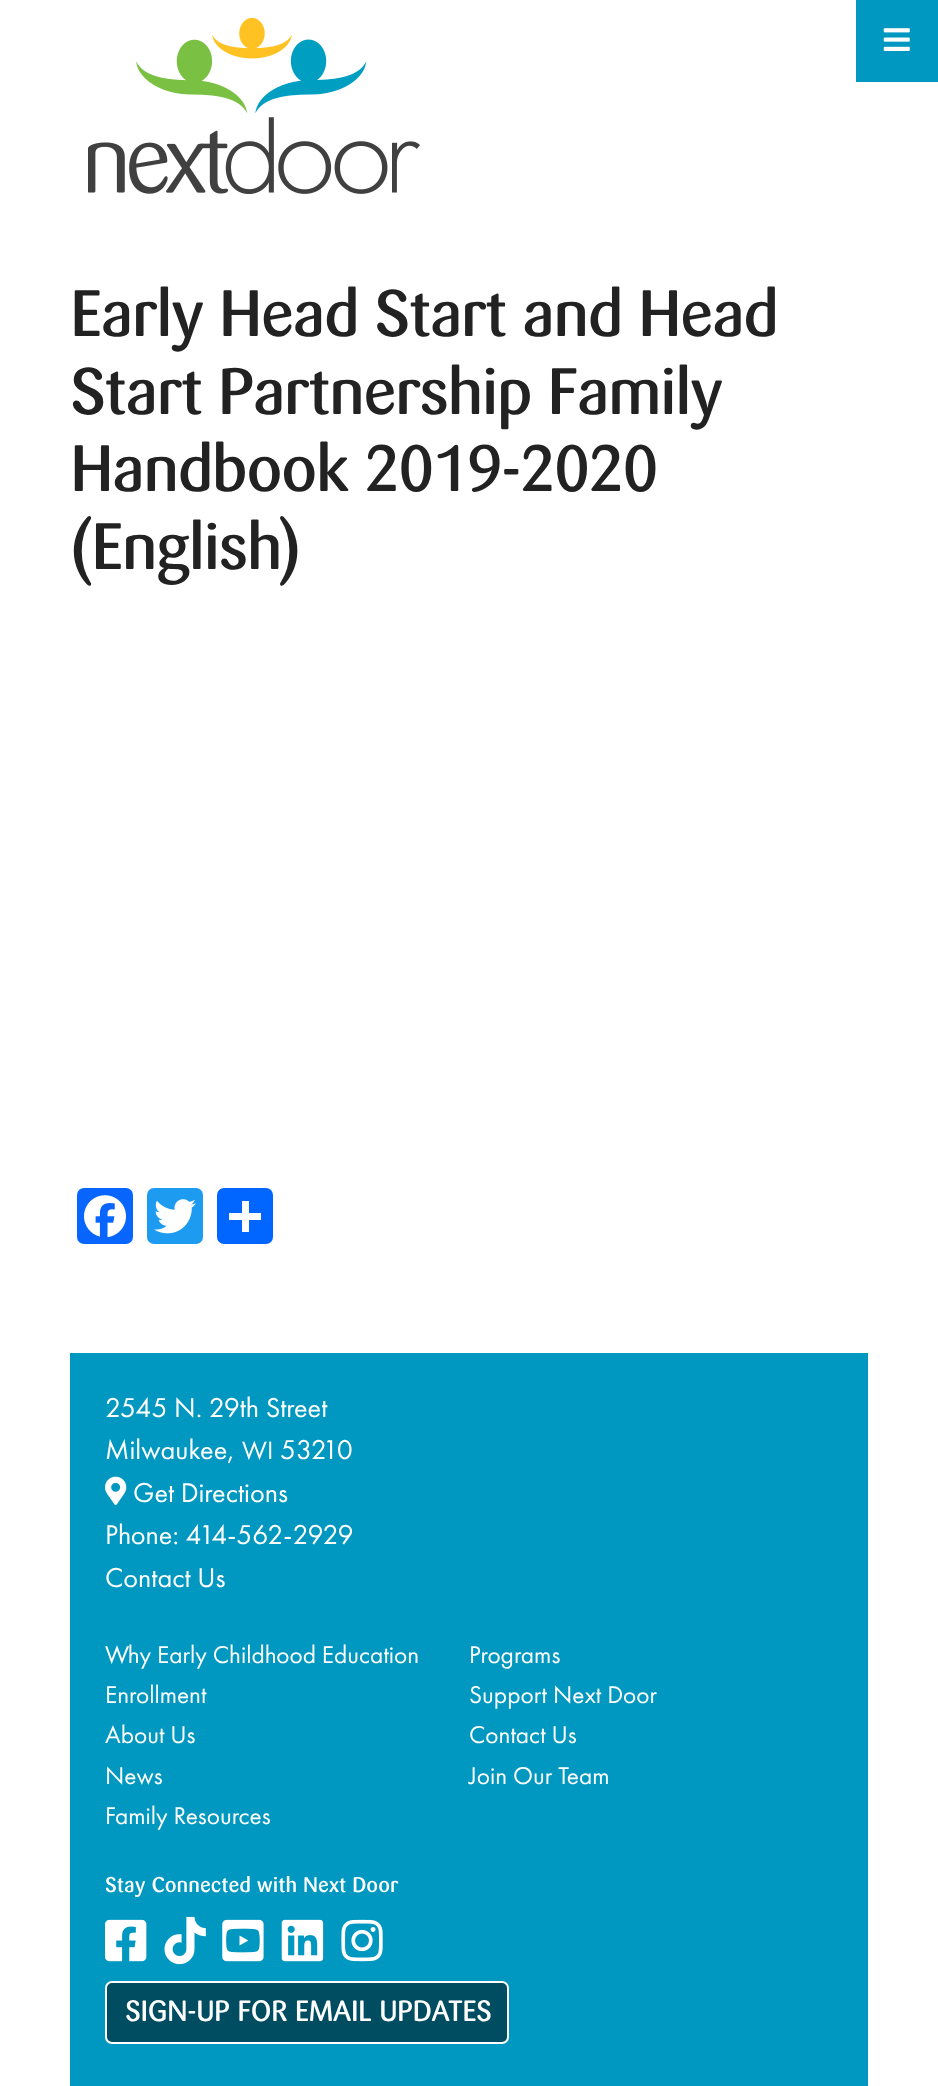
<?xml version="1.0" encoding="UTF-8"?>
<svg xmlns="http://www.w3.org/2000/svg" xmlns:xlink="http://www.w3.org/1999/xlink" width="938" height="2086">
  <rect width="100%" height="100%" fill="#ffffff" />
  <image x="88" y="18" width="332" height="176" xlink:href="image1.png" />
  <rect x="856" width="82" height="82" fill="#0098c0" />
  <image x="883" y="28" width="27" height="23" xlink:href="image2.png" />
  <rect x="77" y="1188" width="56" height="56" rx="7" fill="#0866ff" />
  <image x="84" y="1195" width="42" height="43" xlink:href="image3.png" />
  <rect x="147" y="1188" width="56" height="56" rx="7" fill="#1d9bf0" />
  <image x="154" y="1199" width="42" height="35" xlink:href="image4.png" />
  <rect x="217" y="1188" width="56" height="56" rx="7" fill="#0166ff" />
  <rect x="242" y="1201" width="7" height="31" fill="#ffffff" />
  <rect x="229" y="1213" width="32" height="7" fill="#ffffff" />
  <rect x="70" y="1353" width="798" height="733" fill="#0098c0" />
  <image x="105" y="1476" width="22" height="29" xlink:href="image5.png" />
  <image x="105" y="1919" width="42" height="43" xlink:href="image6.png" />
  <image x="164" y="1916" width="42" height="49" xlink:href="image7.png" />
  <image x="222" y="1919" width="42" height="43" xlink:href="image8.png" />
  <image x="281" y="1919" width="43" height="43" xlink:href="image9.png" />
  <image x="341" y="1919" width="42" height="43" xlink:href="image10.png" />
  <rect x="106" y="1982" width="402" height="61" rx="6" fill="#004c60" stroke="#ffffff" stroke-width="2" />
  <text x="70" y="336" style="font-family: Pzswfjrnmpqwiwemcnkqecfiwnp; font-size: 64.75px; font-weight: 500; letter-spacing: -1.75px; fill: #222222">Early Head Start and Head</text>
  <text x="70" y="414" style="font-family: Pzswfjrnmpqwiwemcnkqecfiwnp; font-size: 64.75px; font-weight: 500; letter-spacing: -1.75px; fill: #222222">Start Partnership Family</text>
  <text x="70" y="491" style="font-family: Pzswfjrnmpqwiwemcnkqecfiwnp; font-size: 64.75px; font-weight: 500; letter-spacing: -1.75px; fill: #222222">Handbook 2019-2020</text>
  <text x="70" y="569" style="font-family: Pzswfjrnmpqwiwemcnkqecfiwnp; font-size: 64.75px; font-weight: 500; letter-spacing: -1.75px; fill: #222222">(English)</text>
  <text x="105" y="1417" style="font-family: Futura PT; font-size: 28.25px; fill: #ffffff">2545 N. 29th Street</text>
  <text x="105" y="1459" style="font-family: Futura PT; font-size: 28.25px; fill: #ffffff">Milwaukee,</text>
  <text x="242" y="1459" style="font-family: Futura PT; font-size: 26px; fill: #ffffff">WI</text>
  <text x="280" y="1459" style="font-family: Futura PT; font-size: 28.25px; fill: #ffffff">53210</text>
  <text x="133" y="1502" style="font-family: Futura PT; font-size: 28.25px; fill: #ffffff">Get Directions</text>
  <text x="105" y="1544" style="font-family: Futura PT; font-size: 28.25px; fill: #ffffff">Phone: 414-562-2929</text>
  <text x="105" y="1587" style="font-family: Futura PT; font-size: 28.25px; fill: #ffffff">Contact Us</text>
  <text x="105" y="1663" style="font-family: Futura PT; font-size: 25.25px; fill: #ffffff">Why Early Childhood Education</text>
  <text x="469" y="1663" style="font-family: Futura PT; font-size: 25.25px; fill: #ffffff">Programs</text>
  <text x="105" y="1703" style="font-family: Futura PT; font-size: 25.25px; fill: #ffffff">Enrollment</text>
  <text x="469" y="1703" style="font-family: Futura PT; font-size: 25.25px; fill: #ffffff">Support Next Door</text>
  <text x="105" y="1743" style="font-family: Futura PT; font-size: 25.25px; fill: #ffffff">About Us</text>
  <text x="469" y="1743" style="font-family: Futura PT; font-size: 25.25px; fill: #ffffff">Contact Us</text>
  <text x="105" y="1784" style="font-family: Futura PT; font-size: 25.25px; fill: #ffffff">News</text>
  <text x="469" y="1784" style="font-family: Futura PT; font-size: 25.25px; fill: #ffffff">Join Our Team</text>
  <text x="105" y="1824" style="font-family: Futura PT; font-size: 25.25px; fill: #ffffff">Family Resources</text>
  <text x="105" y="1892" style="font-family: Pzswfjrnmpqwiwemcnkqecfiwnp; font-size: 21px; font-weight: 500; fill: #ffffff">Stay Connected with Next Door</text>
  <text x="125" y="2021" style="font-family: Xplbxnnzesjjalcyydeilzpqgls; font-size: 28px; font-weight: bold; fill: #ffffff">SIGN-UP FOR EMAIL UPDATES</text>
</svg>
